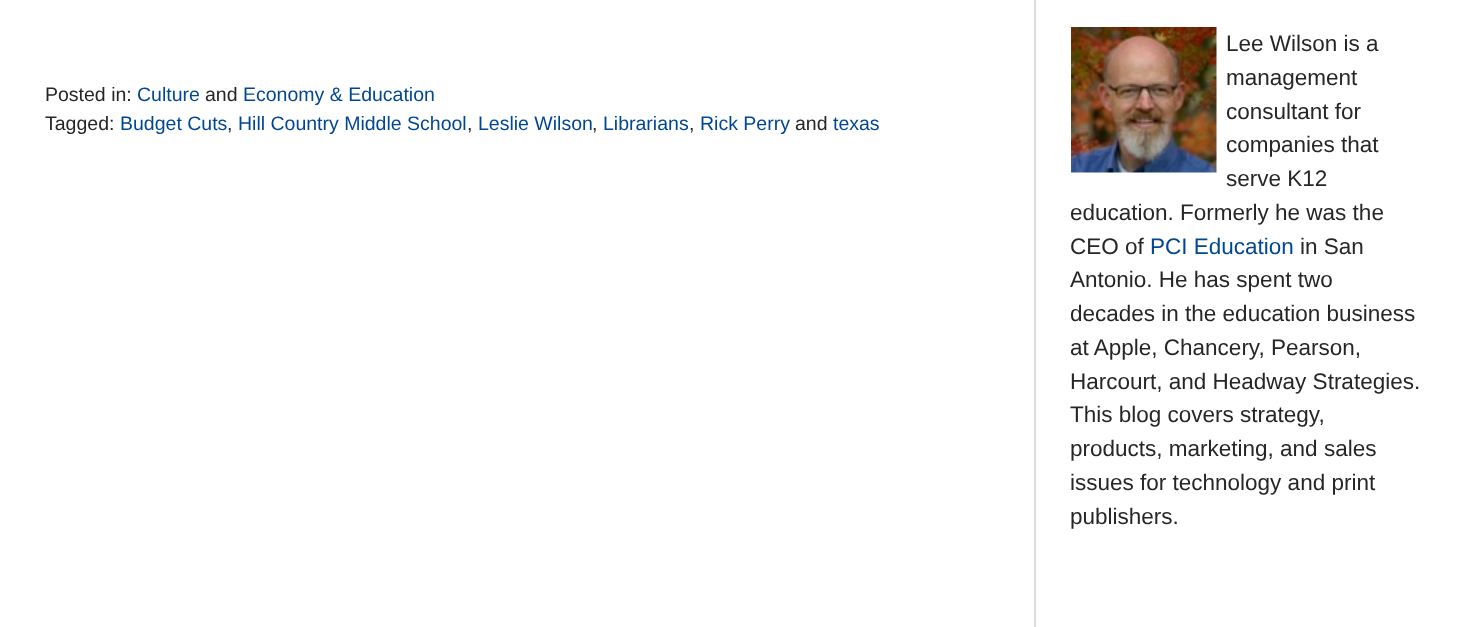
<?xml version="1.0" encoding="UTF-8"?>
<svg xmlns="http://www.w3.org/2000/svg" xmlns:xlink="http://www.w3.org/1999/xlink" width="1457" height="627">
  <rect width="100%" height="100%" fill="#ffffff" />
  <rect x="1034" width="2" height="627" fill="#dcdcdc" />
  <image x="1071" y="27" width="146" height="146" xlink:href="image1.png" />
  <text x="45" y="101" style="font-family: Liberation Sans; font-size: 19.5px; fill: #262626">Posted in:</text>
  <text x="137" y="101" style="font-family: Liberation Sans; font-size: 19.5px; fill: #004793">Culture</text>
  <text x="205" y="101" style="font-family: Liberation Sans; font-size: 19.5px; fill: #262626">and</text>
  <text x="243" y="101" style="font-family: Liberation Sans; font-size: 19.5px; fill: #004793">Economy &amp; Education</text>
  <text x="45" y="130" style="font-family: Liberation Sans; font-size: 19.5px; fill: #262626">Tagged:</text>
  <text x="120" y="130" style="font-family: Liberation Sans; font-size: 19.5px; fill: #004793">Budget Cuts</text>
  <text x="227" y="130" style="font-family: Liberation Sans; font-size: 19.5px; fill: #262626">,</text>
  <text x="238" y="130" style="font-family: Liberation Sans; font-size: 19.5px; fill: #004793">Hill Country Middle School</text>
  <text x="467" y="130" style="font-family: Liberation Sans; font-size: 19.5px; fill: #262626">,</text>
  <text x="478" y="130" style="font-family: Liberation Sans; font-size: 19.5px; fill: #004793">Leslie Wilson</text>
  <text x="592" y="130" style="font-family: Liberation Sans; font-size: 19.5px; fill: #262626">,</text>
  <text x="603" y="130" style="font-family: Liberation Sans; font-size: 19.5px; fill: #004793">Librarians</text>
  <text x="689" y="130" style="font-family: Liberation Sans; font-size: 19.5px; fill: #262626">,</text>
  <text x="700" y="130" style="font-family: Liberation Sans; font-size: 19.5px; fill: #004793">Rick Perry</text>
  <text x="795" y="130" style="font-family: Liberation Sans; font-size: 19.5px; fill: #262626">and</text>
  <text x="833" y="130" style="font-family: Liberation Sans; font-size: 19.5px; fill: #004793">texas</text>
  <text x="1226" y="51" style="font-family: Liberation Sans; font-size: 22.5px; fill: #262626">Lee Wilson is a</text>
  <text x="1226" y="85" style="font-family: Liberation Sans; font-size: 22.5px; fill: #262626">management</text>
  <text x="1226" y="119" style="font-family: Liberation Sans; font-size: 22.5px; fill: #262626">consultant for</text>
  <text x="1226" y="152" style="font-family: Liberation Sans; font-size: 22.5px; fill: #262626">companies that</text>
  <text x="1226" y="186" style="font-family: Liberation Sans; font-size: 22.5px; fill: #262626">serve K12</text>
  <text x="1070" y="220" style="font-family: Liberation Sans; font-size: 22.5px; fill: #262626">education. Formerly he was the</text>
  <text x="1070" y="254" style="font-family: Liberation Sans; font-size: 22.5px; fill: #262626">CEO of</text>
  <text x="1150" y="254" style="font-family: Liberation Sans; font-size: 22.5px; fill: #004793">PCI Education</text>
  <text x="1300" y="254" style="font-family: Liberation Sans; font-size: 22.5px; fill: #262626">in San</text>
  <text x="1070" y="287" style="font-family: Liberation Sans; font-size: 22.5px; fill: #262626">Antonio. He has spent two</text>
  <text x="1070" y="321" style="font-family: Liberation Sans; font-size: 22.5px; fill: #262626">decades in the education business</text>
  <text x="1070" y="355" style="font-family: Liberation Sans; font-size: 22.5px; fill: #262626">at Apple, Chancery, Pearson,</text>
  <text x="1070" y="389" style="font-family: Liberation Sans; font-size: 22.5px; fill: #262626">Harcourt, and Headway Strategies.</text>
  <text x="1070" y="422" style="font-family: Liberation Sans; font-size: 22.5px; fill: #262626">This blog covers strategy,</text>
  <text x="1070" y="456" style="font-family: Liberation Sans; font-size: 22.5px; fill: #262626">products, marketing, and sales</text>
  <text x="1070" y="490" style="font-family: Liberation Sans; font-size: 22.5px; fill: #262626">issues for technology and print</text>
  <text x="1070" y="524" style="font-family: Liberation Sans; font-size: 22.5px; fill: #262626">publishers.</text>
</svg>
